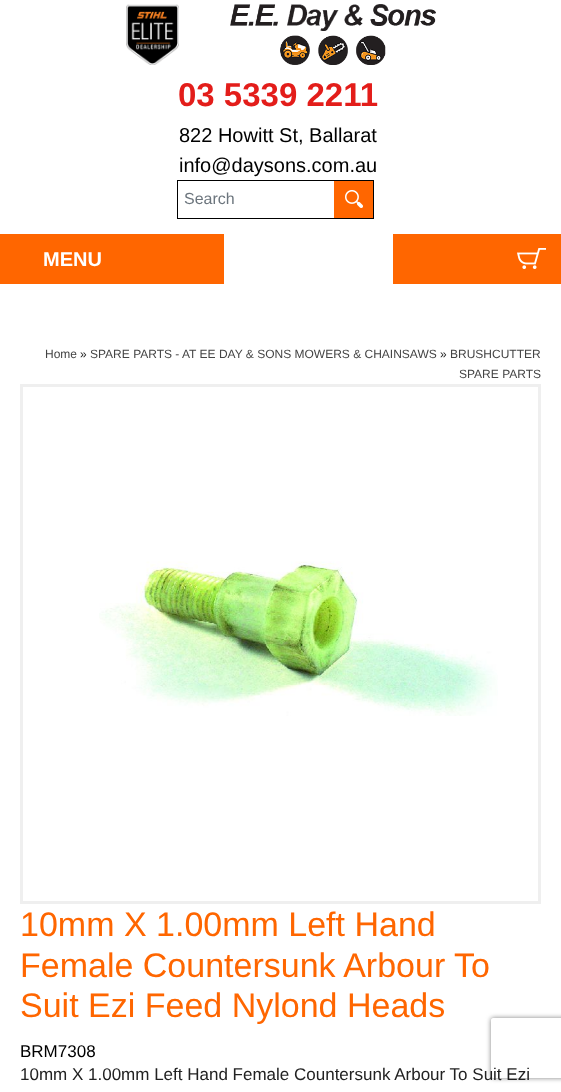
<?xml version="1.0" encoding="UTF-8"?>
<svg xmlns="http://www.w3.org/2000/svg" xmlns:xlink="http://www.w3.org/1999/xlink" width="561" height="1092">
  <defs>
    <clipPath id="clip1"><path d="M 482 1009 h 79 v 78 h -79 z m 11 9 h 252 c 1 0 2 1 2 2 v 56 c 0 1 -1 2 -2 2 h -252 c -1 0 -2 -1 -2 -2 v -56 c 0 -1 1 -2 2 -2 z" clip-rule="evenodd" /></clipPath>
  </defs>
  <rect width="100%" height="100%" fill="#ffffff" />
  <image x="126" y="4" width="53" height="61" xlink:href="image1.png" />
  <image x="230" y="4" width="206" height="61" xlink:href="image2.png" />
  <rect x="177.5" y="180.5" width="196" height="38" fill="none" stroke="#000000" />
  <rect x="334" y="181" width="39" height="37" fill="#ff6600" />
  <image x="345" y="190" width="18" height="18" xlink:href="image3.png" />
  <rect y="234" width="224" height="50" fill="#ff6600" />
  <rect x="393" y="234" width="168" height="50" fill="#ff6600" />
  <image x="517" y="248" width="29" height="21" xlink:href="image4.png" />
  <rect x="21.5" y="385.5" width="518" height="517" fill="none" stroke="#efefef" stroke-width="3" />
  <image x="99" y="561" width="399" height="155" xlink:href="image5.png" />
  <g clip-path="url(#clip1)">
    <rect x="491" y="1018" width="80" height="60" rx="2" fill="#808080" filter="blur(2.5px)" />
  </g>
  <text x="178" y="106" style="font-family: Liberation Sans; font-size: 33px; font-weight: bold; fill: #e31d1a">03 5339 2211</text>
  <text x="179" y="142" style="font-family: Liberation Sans; font-size: 20px; fill: #000000">822 Howitt St, Ballarat</text>
  <text x="179" y="172" style="font-family: Liberation Sans; font-size: 20px; fill: #000000">info@daysons.com.au</text>
  <text x="184" y="204" style="font-family: Liberation Sans; font-size: 16px; fill: #6c757d">Search</text>
  <text x="43" y="266" style="font-family: Liberation Sans; font-size: 20px; font-weight: bold; fill: #ffffff">MENU</text>
  <text x="45" y="358" style="font-family: Liberation Sans; font-size: 12px; fill: #444444">Home</text>
  <text x="80" y="358" style="font-family: Liberation Sans; font-size: 12px; fill: #222222">»</text>
  <text x="90" y="358" style="font-family: Liberation Sans; font-size: 12px; fill: #444444">SPARE PARTS -</text>
  <text x="182" y="358" style="font-family: Liberation Sans; font-size: 12px; fill: #444444">AT EE DAY &amp; SONS MOWERS &amp; CHAINSAWS</text>
  <text x="440" y="358" style="font-family: Liberation Sans; font-size: 12px; fill: #222222">»</text>
  <text x="450" y="358" style="font-family: Liberation Sans; font-size: 12px; fill: #444444">BRUSHCUTTER</text>
  <text x="459" y="378" style="font-family: Liberation Sans; font-size: 12px; fill: #444444">SPARE PARTS</text>
  <text x="20" y="936" style="font-family: Liberation Sans; font-size: 34px; fill: #ff6600">10mm X 1.00mm Left Hand</text>
  <text x="20" y="977" style="font-family: Liberation Sans; font-size: 34px; fill: #ff6600">Female Countersunk Arbour To</text>
  <text x="20" y="1017" style="font-family: Liberation Sans; font-size: 34px; fill: #ff6600">Suit Ezi Feed Nylond Heads</text>
  <text x="20" y="1057" style="font-family: Liberation Sans; font-size: 17px; fill: #000000">BRM7308</text>
  <text x="20" y="1080" style="font-family: Liberation Sans; font-size: 17px; fill: #222222">10mm X 1.00mm Left Hand Female Countersunk Arbour To Suit Ezi</text>
</svg>
